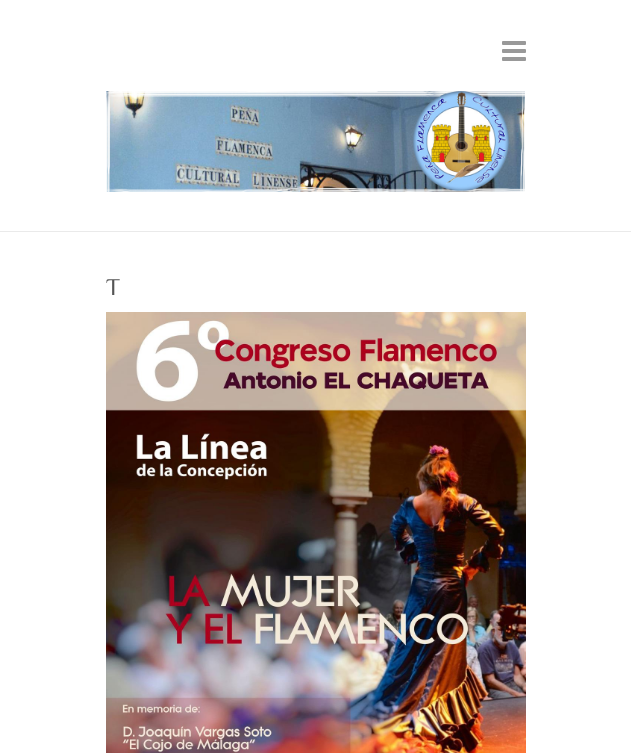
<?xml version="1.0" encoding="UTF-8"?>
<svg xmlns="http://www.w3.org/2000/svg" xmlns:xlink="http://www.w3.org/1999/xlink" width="631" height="753">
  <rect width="100%" height="100%" fill="#ffffff" />
  <image x="502" y="41" width="24" height="20" xlink:href="image1.png" />
  <image x="106" y="91" width="419" height="101" xlink:href="image2.png" />
  <rect y="231" width="631" height="1" fill="#eaeaea" />
  <image x="106" y="312" width="420" height="441" xlink:href="image3.png" />
  <text x="106" y="295" style="font-family: Philosopher; font-size: 24px; fill: #555555">T</text>
</svg>
